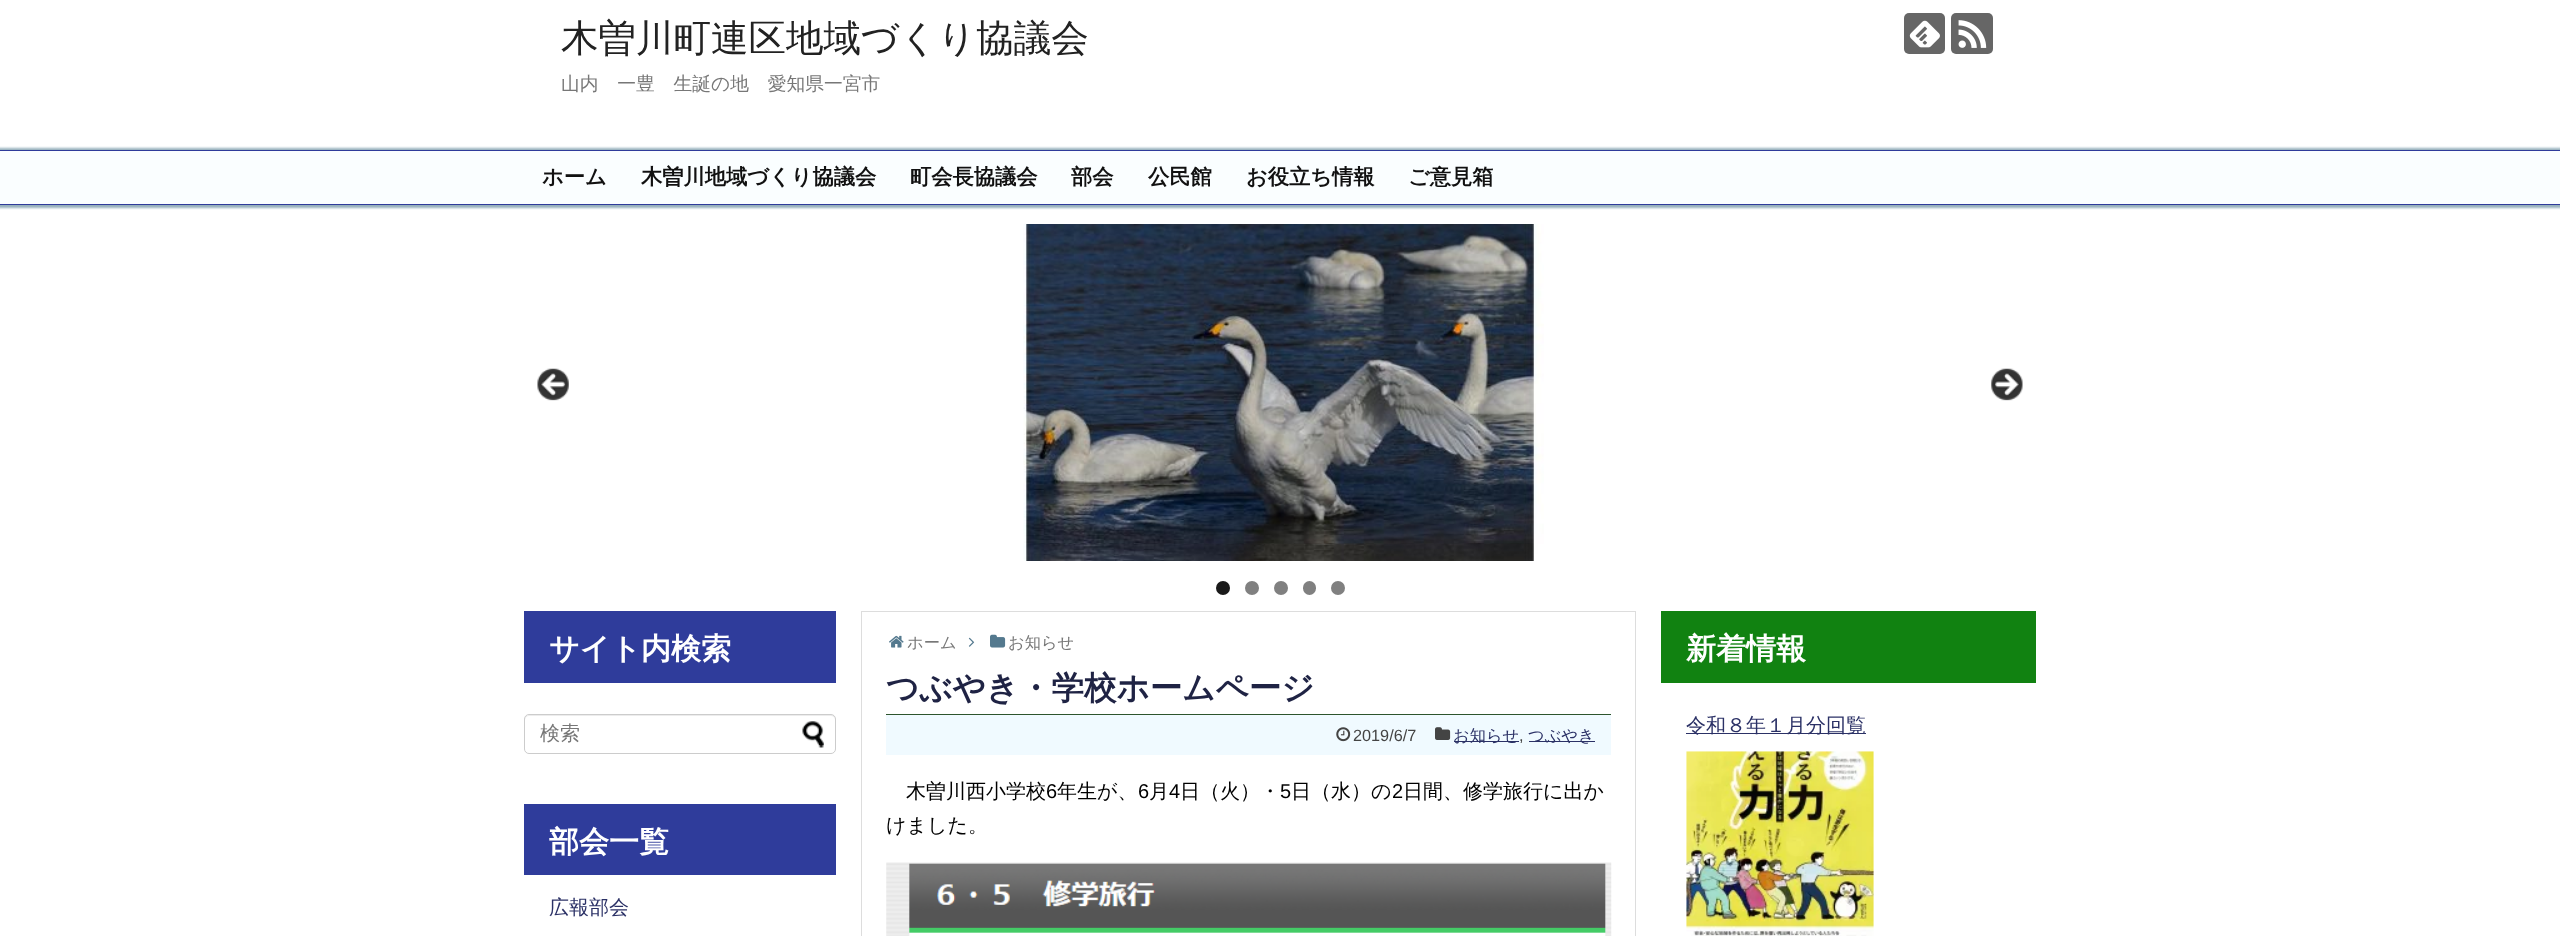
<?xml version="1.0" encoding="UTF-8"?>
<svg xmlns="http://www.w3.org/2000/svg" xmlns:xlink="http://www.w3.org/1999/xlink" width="2560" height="936">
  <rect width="100%" height="100%" fill="#ffffff" />
  <rect x="1904" y="13" width="41" height="41" rx="5" fill="#666666" />
  <image x="1909" y="20" width="31" height="28" xlink:href="image1.png" />
  <rect x="1951" y="13" width="42" height="41" rx="5" fill="#666666" />
  <image x="1958" y="20" width="29" height="28" xlink:href="image2.png" />
  <rect x="-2" y="148" width="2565" height="60" fill="#95b0bc" filter="blur(1px)" />
  <rect y="151" width="2560" height="53" fill="#fafeff" />
  <rect y="150" width="2560" height="1" fill="#2f3c9b" />
  <rect y="204" width="2560" height="1" fill="#2f3c9b" />
  <image x="1023" y="224" width="521" height="337" xlink:href="image3.png" />
  <image x="537" y="368" width="32" height="33" xlink:href="image4.png" />
  <image x="1991" y="368" width="32" height="33" xlink:href="image5.png" />
  <circle cx="1223" cy="588" r="7" fill="#1a1a1a" />
  <circle cx="1252" cy="588" r="7" fill="#808080" />
  <circle cx="1281" cy="588" r="7" fill="#808080" />
  <rect x="1303" y="581" width="13" height="14" rx="6.5" fill="#808080" />
  <circle cx="1338" cy="588" r="7" fill="#808080" />
  <rect x="524" y="611" width="312" height="72" fill="#2f3c9b" />
  <path d="M 529 716 h 302 c 2 0 4 2 4 4 c 0 -3 -1 -5 -4 -5 h -302 l -3 1 c -1 1 -1 3 -1 4 c 0 -2 2 -4 4 -4 z" fill="#ececec" />
  <rect x="524.5" y="714.5" width="311" height="39" rx="4.5" fill="none" stroke="#cccccc" />
  <image x="802" y="721" width="22" height="27" xlink:href="image6.png" />
  <rect x="524" y="804" width="312" height="71" fill="#2f3c9b" />
  <rect x="861.5" y="611.5" width="774" height="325" fill="none" stroke="#dddddd" />
  <image x="889" y="635" width="15" height="13" xlink:href="image7.png" />
  <image x="968" y="637" width="7" height="10" xlink:href="image8.png" />
  <image x="990" y="634" width="16" height="14" xlink:href="image9.png" />
  <rect x="886" y="715" width="725" height="40" fill="#f0faff" />
  <rect x="886" y="714" width="725" height="1" fill="#2d542d" />
  <image x="1336" y="727" width="15" height="15" xlink:href="image10.png" />
  <image x="1435" y="727" width="16" height="13" xlink:href="image11.png" />
  <rect x="1454" y="741" width="65" height="1" fill="#2b3166" />
  <rect x="1529" y="741" width="66" height="1" fill="#2b3166" />
  <image x="886" y="862" width="726" height="74" xlink:href="image12.png" />
  <rect x="1661" y="611" width="375" height="72" fill="#118211" />
  <rect x="1686" y="733" width="180" height="1" fill="#2b3166" />
  <image x="1686" y="751" width="188" height="185" xlink:href="image13.png" />
  <text x="561" y="51" style="font-family: WenQuanYi Zen Hei; font-size: 37.5px; font-weight: 500; fill: #222222">木曽川町連区地域づくり協議会</text>
  <text x="561" y="90" style="font-family: WenQuanYi Zen Hei; font-size: 18.75px; font-weight: 500; fill: #777777">山内　一豊　生誕の地　愛知県一宮市</text>
  <text x="542" y="184" style="font-family: WenQuanYi Zen Hei; font-size: 21.25px; font-weight: bold; fill: #111111">ホーム</text>
  <text x="641" y="184" style="font-family: WenQuanYi Zen Hei; font-size: 21.25px; font-weight: bold; fill: #111111">木曽川地域づくり協議会</text>
  <text x="910" y="184" style="font-family: WenQuanYi Zen Hei; font-size: 21.25px; font-weight: bold; fill: #111111">町会長協議会</text>
  <text x="1071" y="184" style="font-family: WenQuanYi Zen Hei; font-size: 21.25px; font-weight: bold; fill: #111111">部会</text>
  <text x="1148" y="184" style="font-family: WenQuanYi Zen Hei; font-size: 21.25px; font-weight: bold; fill: #111111">公民館</text>
  <text x="1246" y="184" style="font-family: WenQuanYi Zen Hei; font-size: 21.25px; font-weight: bold; fill: #111111">お役立ち情報</text>
  <text x="1408" y="184" style="font-family: WenQuanYi Zen Hei; font-size: 21.25px; font-weight: bold; fill: #111111">ご意見箱</text>
  <text x="549" y="659" style="font-family: WenQuanYi Zen Hei; font-size: 30px; font-weight: bold; fill: #ffffff">サイト内検索</text>
  <text x="540" y="740" style="font-family: WenQuanYi Zen Hei; font-size: 20px; font-weight: 500; fill: #777777">検索</text>
  <text x="549" y="852" style="font-family: WenQuanYi Zen Hei; font-size: 30px; font-weight: bold; fill: #ffffff">部会一覧</text>
  <text x="549" y="914" style="font-family: WenQuanYi Zen Hei; font-size: 20px; font-weight: 500; fill: #2b3166">広報部会</text>
  <text x="907" y="648" style="font-family: WenQuanYi Zen Hei; font-size: 16.25px; font-weight: 500; fill: #777777">ホーム</text>
  <text x="1008" y="648" style="font-family: WenQuanYi Zen Hei; font-size: 16.25px; font-weight: 500; fill: #777777">お知らせ</text>
  <text x="886" y="699" style="font-family: WenQuanYi Zen Hei; font-size: 32.5px; font-weight: bold; fill: #1f2344">つぶやき・学校ホームページ</text>
  <text x="1353" y="741" style="font-family: Liberation Sans; font-size: 16.25px; fill: #444444">2019/6/7</text>
  <text x="1453" y="741" style="font-family: WenQuanYi Zen Hei; font-size: 16.25px; font-weight: 500; fill: #2b3166">お知らせ</text>
  <text x="1519" y="741" style="font-family: Liberation Sans; font-size: 16.25px; fill: #444444">,</text>
  <text x="1528" y="741" style="font-family: WenQuanYi Zen Hei; font-size: 16.25px; font-weight: 500; fill: #2b3166">つぶやき</text>
  <text x="906" y="798" style="font-family: WenQuanYi Zen Hei; font-size: 20px; font-weight: 500; fill: #000000">木曽川西小学校</text>
  <text x="1046" y="798" style="font-family: Liberation Sans; font-size: 20px; fill: #000000">6</text>
  <text x="1057" y="798" style="font-family: WenQuanYi Zen Hei; font-size: 20px; font-weight: 500; fill: #000000">年生が、</text>
  <text x="1138" y="798" style="font-family: Liberation Sans; font-size: 20px; fill: #000000">6</text>
  <text x="1149" y="798" style="font-family: WenQuanYi Zen Hei; font-size: 20px; font-weight: 500; fill: #000000">月</text>
  <text x="1169" y="798" style="font-family: Liberation Sans; font-size: 20px; fill: #000000">4</text>
  <text x="1180" y="798" style="font-family: WenQuanYi Zen Hei; font-size: 20px; font-weight: 500; fill: #000000">日（火）・</text>
  <text x="1280" y="798" style="font-family: Liberation Sans; font-size: 20px; fill: #000000">5</text>
  <text x="1291" y="798" style="font-family: WenQuanYi Zen Hei; font-size: 20px; font-weight: 500; fill: #000000">日（水）の</text>
  <text x="1392" y="798" style="font-family: Liberation Sans; font-size: 20px; fill: #000000">2</text>
  <text x="1403" y="798" style="font-family: WenQuanYi Zen Hei; font-size: 20px; font-weight: 500; fill: #000000">日間、修学旅行に出か</text>
  <text x="886" y="832" style="font-family: WenQuanYi Zen Hei; font-size: 20px; font-weight: 500; fill: #000000">けました。</text>
  <text x="1686" y="659" style="font-family: WenQuanYi Zen Hei; font-size: 30px; font-weight: bold; fill: #ffffff">新着情報</text>
  <text x="1686" y="732" style="font-family: WenQuanYi Zen Hei; font-size: 20px; font-weight: 500; fill: #2b3166">令和８年１月分回覧</text>
</svg>
